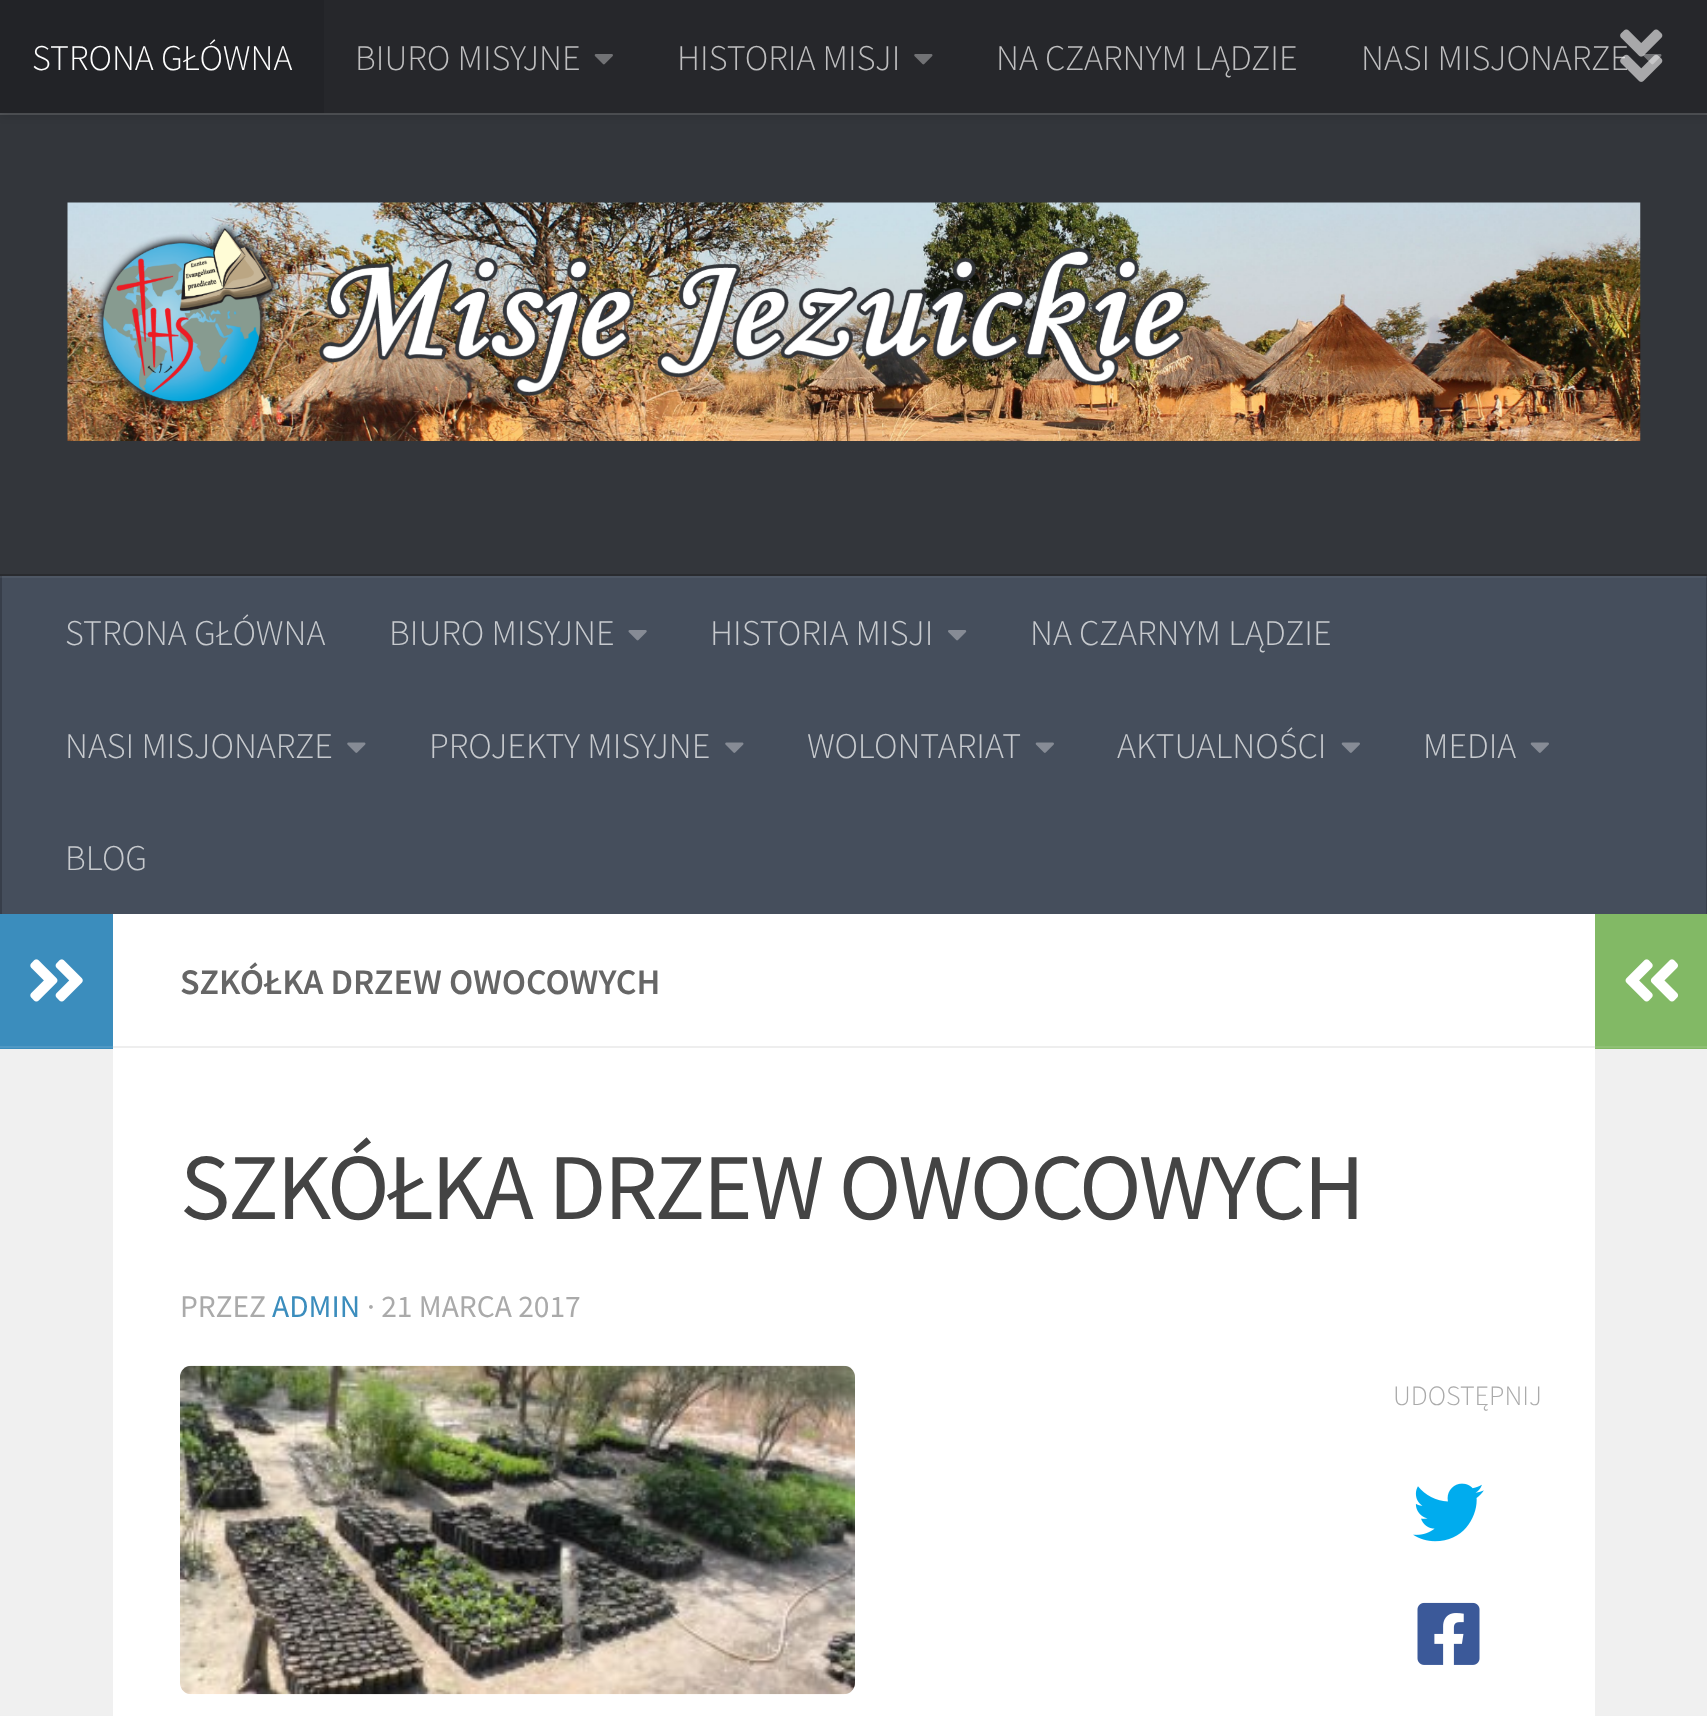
<?xml version="1.0" encoding="UTF-8"?>
<svg xmlns="http://www.w3.org/2000/svg" xmlns:xlink="http://www.w3.org/1999/xlink" width="1707" height="1716">
  <rect width="100%" height="100%" fill="#33363b" />
  <path d="M 0 112 v 3 h 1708 v -113 v 110 z" fill="#525458" />
  <rect width="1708" height="113" fill="#000000" fill-opacity="0.2" filter="blur(5.5px)" />
  <rect x="324" width="1383" height="113" fill="#26272b" />
  <rect width="324" height="113" fill="#222327" />
  <image x="594" y="54" width="19" height="11" xlink:href="image1.png" />
  <image x="914" y="54" width="19" height="11" xlink:href="image2.png" />
  <image x="1643" y="54" width="19" height="11" xlink:href="image2.png" />
  <image x="67" y="202" width="1574" height="239" xlink:href="image4.png" />
  <path d="M 0 574 v 2 h 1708 v 335 v -337 z" fill="#292b2f" />
  <rect x="2" y="578" width="1704" height="336" fill="#454e5c" />
  <rect y="576" width="1707" height="2" fill="#4e5764" />
  <rect x="1706" y="576" width="1" height="338" fill="#373e4a" />
  <rect x="1706" y="576" width="1" height="2" fill="#414853" />
  <rect y="576" width="2" height="338" fill="#373e4a" />
  <rect y="576" width="2" height="2" fill="#414853" />
  <image x="628" y="630" width="19" height="11" xlink:href="image5.png" />
  <image x="948" y="630" width="19" height="11" xlink:href="image6.png" />
  <image x="347" y="742" width="19" height="11" xlink:href="image7.png" />
  <image x="725" y="742" width="19" height="11" xlink:href="image7.png" />
  <image x="1035" y="742" width="19" height="11" xlink:href="image8.png" />
  <image x="1341" y="742" width="19" height="11" xlink:href="image8.png" />
  <image x="1530" y="742" width="19" height="11" xlink:href="image8.png" />
  <rect x="113" y="914" width="1482" height="802" fill="#ffffff" />
  <rect y="1049" width="113" height="667" fill="#f0f0f0" />
  <rect y="914" width="113" height="135" fill="#3b8dbd" />
  <rect y="1046" width="113" height="2" fill="#4f98c4" />
  <image x="30" y="959" width="53" height="43" xlink:href="image9.png" />
  <rect x="113" y="1046" width="1482" height="2" fill="#eeeeee" />
  <image x="180" y="1365" width="675" height="330" xlink:href="image10.png" />
  <image x="1413" y="1483" width="71" height="59" xlink:href="image11.png" />
  <image x="1417" y="1602" width="63" height="63" xlink:href="image12.png" />
  <rect x="1595" y="914" width="112" height="135" fill="#82b965" />
  <rect x="1595" y="1046" width="112" height="2" fill="#8fc074" />
  <image x="1625" y="959" width="53" height="43" xlink:href="image13.png" />
  <rect x="1595" y="1049" width="112" height="667" fill="#f0f0f0" />
  <text x="32" y="70" style="font-family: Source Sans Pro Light; font-size: 36px; font-weight: 300; fill: #ffffff">STRONA GŁÓWNA</text>
  <text x="355" y="70" style="font-family: Source Sans Pro Light; font-size: 36px; font-weight: 300; fill: #bebebf">BIURO MISYJNE</text>
  <text x="677" y="70" style="font-family: Source Sans Pro Light; font-size: 36px; font-weight: 300; fill: #bebebf">HISTORIA MISJI</text>
  <text x="996" y="70" style="font-family: Source Sans Pro Light; font-size: 36px; font-weight: 300; fill: #bebebf">NA CZARNYM LĄDZIE</text>
  <text x="1361" y="70" style="font-family: Source Sans Pro Light; font-size: 36px; font-weight: 300; fill: #bebebf">NASI MISJONARZE</text>
  <image x="1620" y="29" width="43" height="53" xlink:href="image3.png" />
  <text x="65" y="645" style="font-family: Source Sans Pro Light; font-size: 36px; font-weight: 300; fill: #c7cace">STRONA GŁÓWNA</text>
  <text x="389" y="645" style="font-family: Source Sans Pro Light; font-size: 36px; font-weight: 300; fill: #c7cace">BIURO MISYJNE</text>
  <text x="710" y="645" style="font-family: Source Sans Pro Light; font-size: 36px; font-weight: 300; fill: #c7cace">HISTORIA MISJI</text>
  <text x="1030" y="645" style="font-family: Source Sans Pro Light; font-size: 36px; font-weight: 300; fill: #c7cace">NA CZARNYM LĄDZIE</text>
  <text x="65" y="758" style="font-family: Source Sans Pro Light; font-size: 36px; font-weight: 300; fill: #c7cace">NASI MISJONARZE</text>
  <text x="429" y="758" style="font-family: Source Sans Pro Light; font-size: 36px; font-weight: 300; fill: #c7cace">PROJEKTY MISYJNE</text>
  <text x="807" y="758" style="font-family: Source Sans Pro Light; font-size: 36px; font-weight: 300; fill: #c7cace">WOLONTARIAT</text>
  <text x="1117" y="758" style="font-family: Source Sans Pro Light; font-size: 36px; font-weight: 300; fill: #c7cace">AKTUALNOŚCI</text>
  <text x="1423" y="758" style="font-family: Source Sans Pro Light; font-size: 36px; font-weight: 300; fill: #c7cace">MEDIA</text>
  <text x="65" y="870" style="font-family: Source Sans Pro Light; font-size: 36px; font-weight: 300; fill: #c7cace">BLOG</text>
  <text x="180" y="994" style="font-family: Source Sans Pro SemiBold; font-size: 36px; font-weight: 600; fill: #666666">SZKÓŁKA DRZEW OWOCOWYCH</text>
  <text x="180" y="1219" style="font-family: Source Sans Pro; font-size: 94.25px; letter-spacing: -2.25px; fill: #444444">SZKÓŁKA DRZEW OWOCOWYCH</text>
  <text x="180" y="1317" style="font-family: Source Sans Pro; font-size: 31.5px; fill: #aaaaaa">PRZEZ</text>
  <text x="272" y="1317" style="font-family: Source Sans Pro; font-size: 31.5px; fill: #3b8dbd">ADMIN</text>
  <text x="367" y="1317" style="font-family: Source Sans Pro; font-size: 31.5px; fill: #aaaaaa">· 21 MARCA 2017</text>
  <text x="1393" y="1405" style="font-family: Source Sans Pro Light; font-size: 28px; font-weight: 300; fill: #aaaaaa">UDOSTĘPNIJ</text>
</svg>
